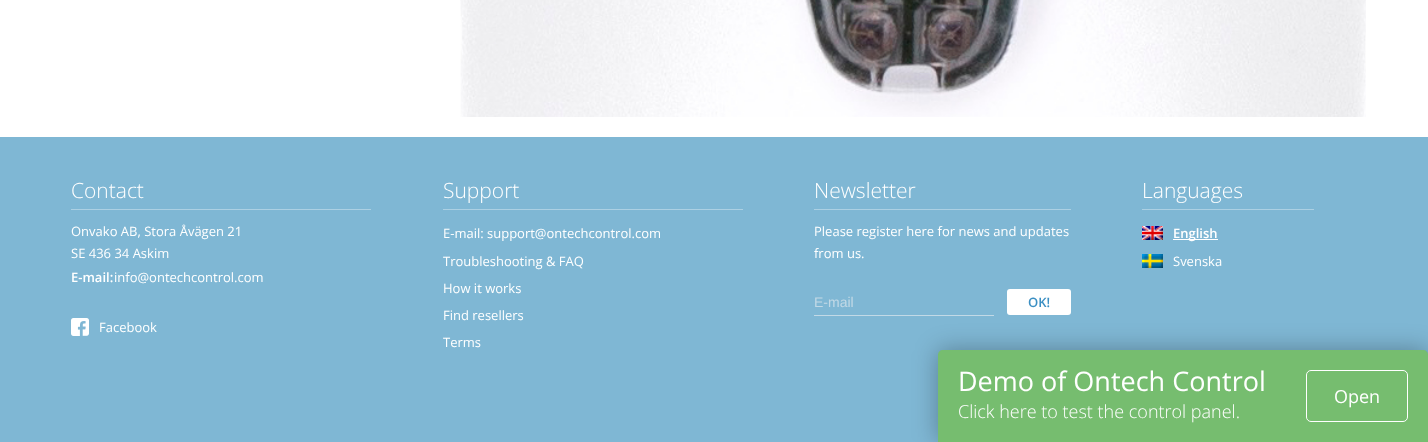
<?xml version="1.0" encoding="UTF-8"?>
<svg xmlns="http://www.w3.org/2000/svg" xmlns:xlink="http://www.w3.org/1999/xlink" width="1428" height="442">
  <rect width="100%" height="100%" fill="#ffffff" />
  <image x="460" y="0" width="906" height="117" xlink:href="image1.png" />
  <rect y="137" width="1428" height="305" fill="#7fb7d4" />
  <rect x="71" y="209" width="300" height="1" fill="#acd0e3" />
  <image x="71" y="318" width="18" height="18" xlink:href="image2.png" />
  <rect x="443" y="209" width="300" height="1" fill="#acd0e3" />
  <rect x="814" y="209" width="257" height="1" fill="#acd0e3" />
  <rect x="814" y="315" width="180" height="1" fill="#c2d9e6" />
  <rect x="1007" y="289" width="64" height="26" rx="3" fill="#ffffff" />
  <rect x="1142" y="209" width="172" height="1" fill="#acd0e3" />
  <image x="1142" y="226" width="21" height="14" xlink:href="image3.png" />
  <rect x="1173" y="239" width="45" height="1" fill="#ffffff" />
  <image x="1142" y="254" width="21" height="14" xlink:href="image4.png" />
  <rect x="938" y="350" width="490" height="92" rx="5" fill="#000000" fill-opacity="0.3" filter="blur(12px)" />
  <path d="M 943 350 h 480 c 3 0 5 2 5 5 v 87 h -490 v -87 c 0 -3 2 -5 5 -5 z" fill="#76bd6f" />
  <rect x="1306.5" y="370.5" width="101" height="51" rx="4.5" fill="none" stroke="#ffffff" />
  <text x="71" y="198" style="font-family: Open Sans; font-size: 21px; font-weight: 300; fill: #ffffff">Contact</text>
  <text x="71" y="236" style="font-family: Open Sans; font-size: 13px; fill: #ffffff">Onvako AB, Stora Åvägen 21</text>
  <text x="71" y="258" style="font-family: Open Sans; font-size: 13px; fill: #ffffff">SE 436 34 Askim</text>
  <text x="71" y="282" style="font-family: Open Sans; font-size: 13px; font-weight: 600; fill: #ffffff">E-mail:</text>
  <text x="114" y="282" style="font-family: Open Sans; font-size: 13px; fill: #ffffff">info@ontechcontrol.com</text>
  <text x="99" y="332" style="font-family: Open Sans; font-size: 13px; fill: #ffffff">Facebook</text>
  <text x="443" y="198" style="font-family: Open Sans; font-size: 21px; font-weight: 300; fill: #ffffff">Support</text>
  <text x="443" y="238" style="font-family: Open Sans; font-size: 13px; fill: #ffffff">E-mail: support@ontechcontrol.com</text>
  <text x="443" y="266" style="font-family: Open Sans; font-size: 13px; fill: #ffffff">Troubleshooting &amp; FAQ</text>
  <text x="443" y="293" style="font-family: Open Sans; font-size: 13px; fill: #ffffff">How it works</text>
  <text x="443" y="320" style="font-family: Open Sans; font-size: 13px; fill: #ffffff">Find resellers</text>
  <text x="443" y="347" style="font-family: Open Sans; font-size: 13px; fill: #ffffff">Terms</text>
  <text x="814" y="198" style="font-family: Open Sans; font-size: 21px; font-weight: 300; fill: #ffffff">Newsletter</text>
  <text x="814" y="236" style="font-family: Open Sans; font-size: 13px; fill: #ffffff">Please register here for news and updates</text>
  <text x="814" y="258" style="font-family: Open Sans; font-size: 13px; fill: #ffffff">from us.</text>
  <text x="814" y="307" style="font-family: Liberation Sans; font-size: 14px; fill: #c2d9e6">E-mail</text>
  <text x="1028" y="307" style="font-family: Open Sans; font-size: 13px; font-weight: 600; fill: #3b8fc3">OK!</text>
  <text x="1142" y="198" style="font-family: Open Sans; font-size: 21px; font-weight: 300; fill: #ffffff">Languages</text>
  <text x="1173" y="238" style="font-family: Open Sans; font-size: 13px; font-weight: 600; fill: #ffffff">English</text>
  <text x="1173" y="266" style="font-family: Open Sans; font-size: 13px; fill: #ffffff">Svenska</text>
  <text x="958" y="391" style="font-family: Open Sans; font-size: 27px; fill: #ffffff">Demo of Ontech Control</text>
  <text x="1334" y="403" style="font-family: Open Sans; font-size: 18px; fill: #ffffff">Open</text>
  <text x="958" y="418" style="font-family: Open Sans; font-size: 18px; font-weight: 300; fill: #ffffff">Click here to test the control panel.</text>
</svg>
